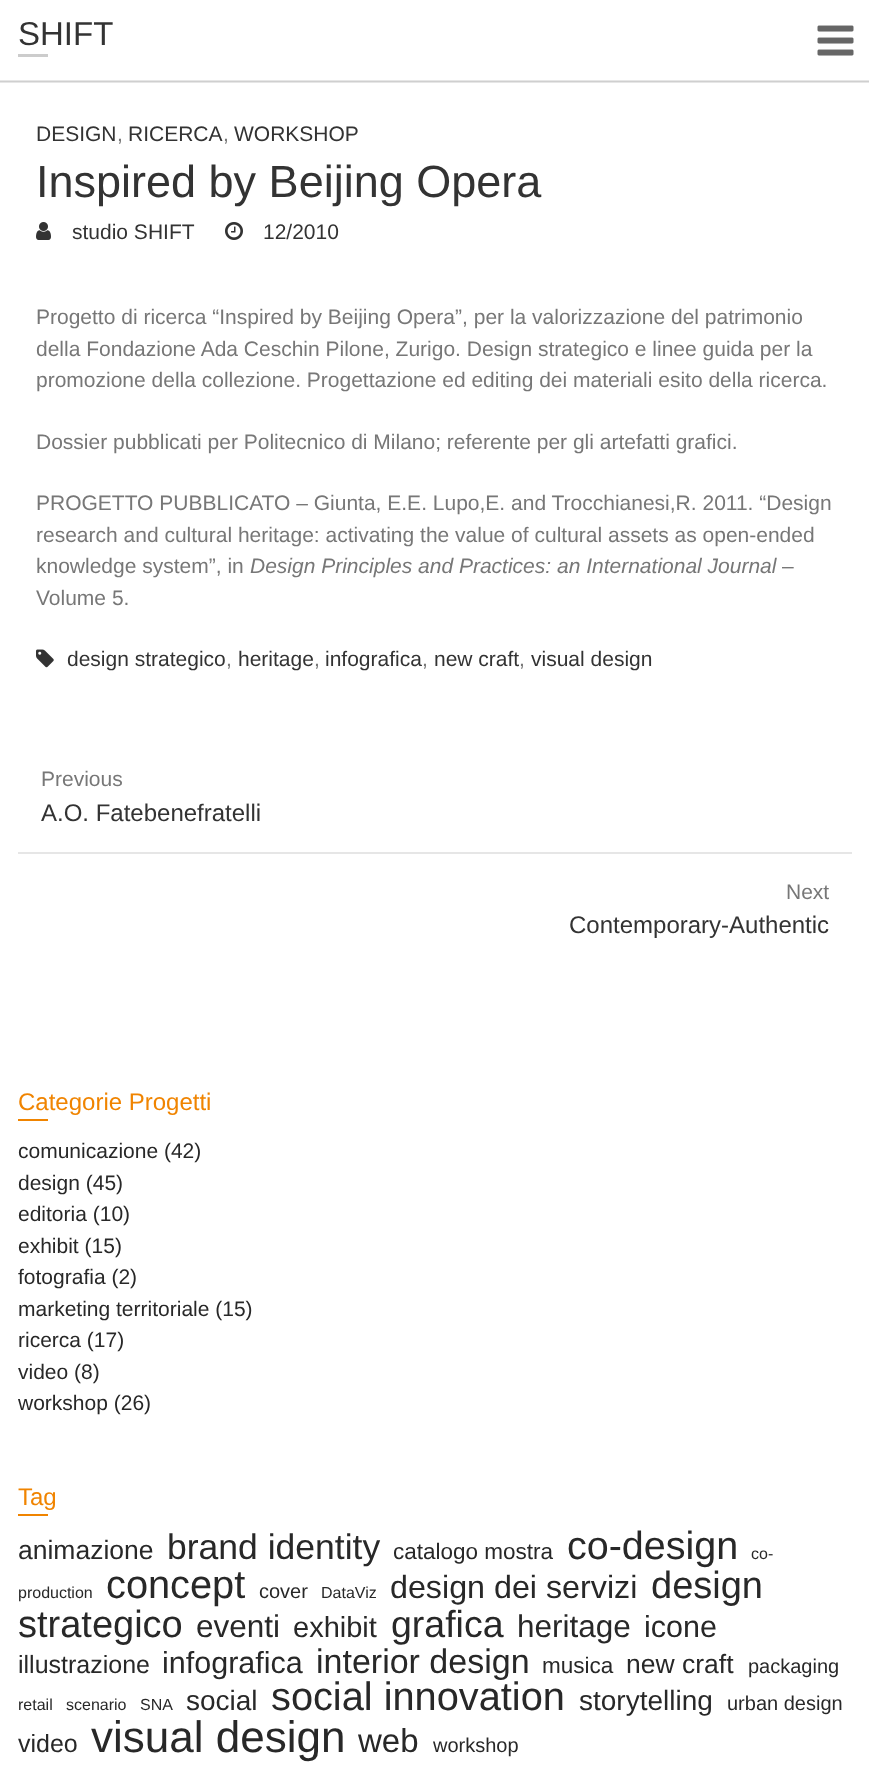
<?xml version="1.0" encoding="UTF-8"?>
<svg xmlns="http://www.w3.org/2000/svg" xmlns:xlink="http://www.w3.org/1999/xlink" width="869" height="1781">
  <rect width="100%" height="100%" fill="#ffffff" />
  <rect y="82" width="869" height="1" fill="#e6e6e6" />
  <rect x="18" y="54" width="30" height="3" fill="#cccccc" />
  <image x="817" y="25" width="37" height="31" xlink:href="image1.png" />
  <rect y="80" width="869" height="1" fill="#e6e6e6" />
  <rect y="81" width="869" height="1" fill="#cfcfcf" />
  <image x="36" y="222" width="15" height="18" xlink:href="image2.png" />
  <image x="225" y="222" width="18" height="18" xlink:href="image3.png" />
  <image x="36" y="649" width="18" height="19" xlink:href="image4.png" />
  <rect x="18" y="852" width="834" height="2" fill="#e6e6e6" />
  <rect x="18" y="1119" width="30" height="2" fill="#f08400" />
  <rect x="18" y="1514" width="30" height="2" fill="#f08400" />
  <text x="18" y="45" style="font-family: Liberation Sans; font-size: 33px; fill: #333333">SHIFT</text>
  <text x="36" y="141" style="font-family: Liberation Sans; font-size: 21px; fill: #333333">DESIGN</text>
  <text x="117" y="141" style="font-family: Liberation Sans; font-size: 21px; fill: #777777">,</text>
  <text x="128" y="141" style="font-family: Liberation Sans; font-size: 21px; fill: #333333">RICERCA</text>
  <text x="223" y="141" style="font-family: Liberation Sans; font-size: 21px; fill: #777777">,</text>
  <text x="234" y="141" style="font-family: Liberation Sans; font-size: 21px; fill: #333333">WORKSHOP</text>
  <text x="36" y="197" style="font-family: Liberation Sans; font-size: 45px; fill: #333333">Inspired by Beijing Opera</text>
  <text x="72" y="239" style="font-family: Liberation Sans; font-size: 21px; fill: #333333">studio SHIFT</text>
  <text x="263" y="239" style="font-family: Liberation Sans; font-size: 21px; fill: #333333">12/2010</text>
  <text x="36" y="324" style="font-family: Liberation Sans; font-size: 21px; fill: #777777">Progetto di ricerca “Inspired by Beijing Opera”, per la valorizzazione del patrimonio</text>
  <text x="36" y="356" style="font-family: Liberation Sans; font-size: 21px; fill: #777777">della Fondazione Ada Ceschin Pilone, Zurigo. Design strategico e linee guida per la</text>
  <text x="36" y="387" style="font-family: Liberation Sans; font-size: 21px; fill: #777777">promozione della collezione. Progettazione ed editing dei materiali esito della ricerca.</text>
  <text x="36" y="449" style="font-family: Liberation Sans; font-size: 21px; fill: #777777">Dossier pubblicati per Politecnico di Milano; referente per gli artefatti grafici.</text>
  <text x="36" y="510" style="font-family: Liberation Sans; font-size: 21px; fill: #777777">PROGETTO PUBBLICATO – Giunta, E.E. Lupo,E. and Trocchianesi,R. 2011. “Design</text>
  <text x="36" y="542" style="font-family: Liberation Sans; font-size: 21px; fill: #777777">research and cultural heritage: activating the value of cultural assets as open-ended</text>
  <text x="36" y="573" style="font-family: Liberation Sans; font-size: 21px; fill: #777777">knowledge system”, in</text>
  <text x="250" y="573" style="font-family: Liberation Sans; font-size: 21px; font-style: italic; fill: #777777">Design Principles and Practices: an International Journal</text>
  <text x="782" y="573" style="font-family: Liberation Sans; font-size: 21px; fill: #777777">–</text>
  <text x="36" y="605" style="font-family: Liberation Sans; font-size: 21px; fill: #777777">Volume 5.</text>
  <text x="67" y="666" style="font-family: Liberation Sans; font-size: 21px; fill: #333333">design strategico</text>
  <text x="226" y="666" style="font-family: Liberation Sans; font-size: 21px; fill: #777777">,</text>
  <text x="238" y="666" style="font-family: Liberation Sans; font-size: 21px; fill: #333333">heritage</text>
  <text x="314" y="666" style="font-family: Liberation Sans; font-size: 21px; fill: #777777">,</text>
  <text x="325" y="666" style="font-family: Liberation Sans; font-size: 21px; fill: #333333">infografica</text>
  <text x="422" y="666" style="font-family: Liberation Sans; font-size: 21px; fill: #777777">,</text>
  <text x="434" y="666" style="font-family: Liberation Sans; font-size: 21px; fill: #333333">new craft</text>
  <text x="519" y="666" style="font-family: Liberation Sans; font-size: 21px; fill: #777777">,</text>
  <text x="531" y="666" style="font-family: Liberation Sans; font-size: 21px; fill: #333333">visual design</text>
  <text x="41" y="786" style="font-family: Liberation Sans; font-size: 21px; fill: #777777">Previous</text>
  <text x="41" y="821" style="font-family: Liberation Sans; font-size: 24px; fill: #333333">A.O. Fatebenefratelli</text>
  <text x="786" y="899" style="font-family: Liberation Sans; font-size: 21px; fill: #777777">Next</text>
  <text x="569" y="933" style="font-family: Liberation Sans; font-size: 24px; fill: #333333">Contemporary-Authentic</text>
  <text x="18" y="1110" style="font-family: Liberation Sans; font-size: 24px; fill: #f08400">Categorie Progetti</text>
  <text x="18" y="1158" style="font-family: Liberation Sans; font-size: 21px; fill: #282828">comunicazione (42)</text>
  <text x="18" y="1190" style="font-family: Liberation Sans; font-size: 21px; fill: #282828">design (45)</text>
  <text x="18" y="1221" style="font-family: Liberation Sans; font-size: 21px; fill: #282828">editoria (10)</text>
  <text x="18" y="1253" style="font-family: Liberation Sans; font-size: 21px; fill: #282828">exhibit (15)</text>
  <text x="18" y="1284" style="font-family: Liberation Sans; font-size: 21px; fill: #282828">fotografia (2)</text>
  <text x="18" y="1316" style="font-family: Liberation Sans; font-size: 21px; fill: #282828">marketing territoriale (15)</text>
  <text x="18" y="1347" style="font-family: Liberation Sans; font-size: 21px; fill: #282828">ricerca (17)</text>
  <text x="18" y="1379" style="font-family: Liberation Sans; font-size: 21px; fill: #282828">video (8)</text>
  <text x="18" y="1410" style="font-family: Liberation Sans; font-size: 21px; fill: #282828">workshop (26)</text>
  <text x="18" y="1505" style="font-family: Liberation Sans; font-size: 24px; fill: #f08400">Tag</text>
  <text x="18" y="1559" style="font-family: Liberation Sans; font-size: 26.5px; fill: #282828">animazione</text>
  <text x="167" y="1559" style="font-family: Liberation Sans; font-size: 35.5px; fill: #282828">brand identity</text>
  <text x="393" y="1559" style="font-family: Liberation Sans; font-size: 22.5px; fill: #282828">catalogo mostra</text>
  <text x="567" y="1559" style="font-family: Liberation Sans; font-size: 39.5px; fill: #282828">co-design</text>
  <text x="751" y="1559" style="font-family: Liberation Sans; font-size: 16px; fill: #282828">co-</text>
  <text x="18" y="1598" style="font-family: Liberation Sans; font-size: 16px; fill: #282828">production</text>
  <text x="106" y="1598" style="font-family: Liberation Sans; font-size: 39.75px; fill: #282828">concept</text>
  <text x="259" y="1598" style="font-family: Liberation Sans; font-size: 20px; fill: #282828">cover</text>
  <text x="321" y="1598" style="font-family: Liberation Sans; font-size: 16px; fill: #282828">DataViz</text>
  <text x="390" y="1598" style="font-family: Liberation Sans; font-size: 32.25px; fill: #282828">design dei servizi</text>
  <text x="651" y="1598" style="font-family: Liberation Sans; font-size: 38px; fill: #282828">design</text>
  <text x="18" y="1637" style="font-family: Liberation Sans; font-size: 38px; fill: #282828">strategico</text>
  <text x="196" y="1637" style="font-family: Liberation Sans; font-size: 31.5px; fill: #282828">eventi</text>
  <text x="293" y="1637" style="font-family: Liberation Sans; font-size: 29px; fill: #282828">exhibit</text>
  <text x="391" y="1637" style="font-family: Liberation Sans; font-size: 37.5px; fill: #282828">grafica</text>
  <text x="517" y="1637" style="font-family: Liberation Sans; font-size: 31.5px; fill: #282828">heritage</text>
  <text x="644" y="1637" style="font-family: Liberation Sans; font-size: 30.5px; fill: #282828">icone</text>
  <text x="18" y="1673" style="font-family: Liberation Sans; font-size: 25px; fill: #282828">illustrazione</text>
  <text x="162" y="1673" style="font-family: Liberation Sans; font-size: 30.5px; fill: #282828">infografica</text>
  <text x="316" y="1673" style="font-family: Liberation Sans; font-size: 34px; fill: #282828">interior design</text>
  <text x="542" y="1673" style="font-family: Liberation Sans; font-size: 22.5px; fill: #282828">musica</text>
  <text x="626" y="1673" style="font-family: Liberation Sans; font-size: 26.5px; fill: #282828">new craft</text>
  <text x="748" y="1673" style="font-family: Liberation Sans; font-size: 20px; fill: #282828">packaging</text>
  <text x="18" y="1710" style="font-family: Liberation Sans; font-size: 16px; fill: #282828">retail</text>
  <text x="66" y="1710" style="font-family: Liberation Sans; font-size: 16px; fill: #282828">scenario</text>
  <text x="140" y="1710" style="font-family: Liberation Sans; font-size: 16px; fill: #282828">SNA</text>
  <text x="186" y="1710" style="font-family: Liberation Sans; font-size: 28px; fill: #282828">social</text>
  <text x="271" y="1710" style="font-family: Liberation Sans; font-size: 39.75px; fill: #282828">social innovation</text>
  <text x="579" y="1710" style="font-family: Liberation Sans; font-size: 28px; fill: #282828">storytelling</text>
  <text x="727" y="1710" style="font-family: Liberation Sans; font-size: 20px; fill: #282828">urban design</text>
  <text x="18" y="1752" style="font-family: Liberation Sans; font-size: 25px; fill: #282828">video</text>
  <text x="91" y="1752" style="font-family: Liberation Sans; font-size: 44px; fill: #282828">visual design</text>
  <text x="358" y="1752" style="font-family: Liberation Sans; font-size: 33px; fill: #282828">web</text>
  <text x="433" y="1752" style="font-family: Liberation Sans; font-size: 20px; fill: #282828">workshop</text>
</svg>
